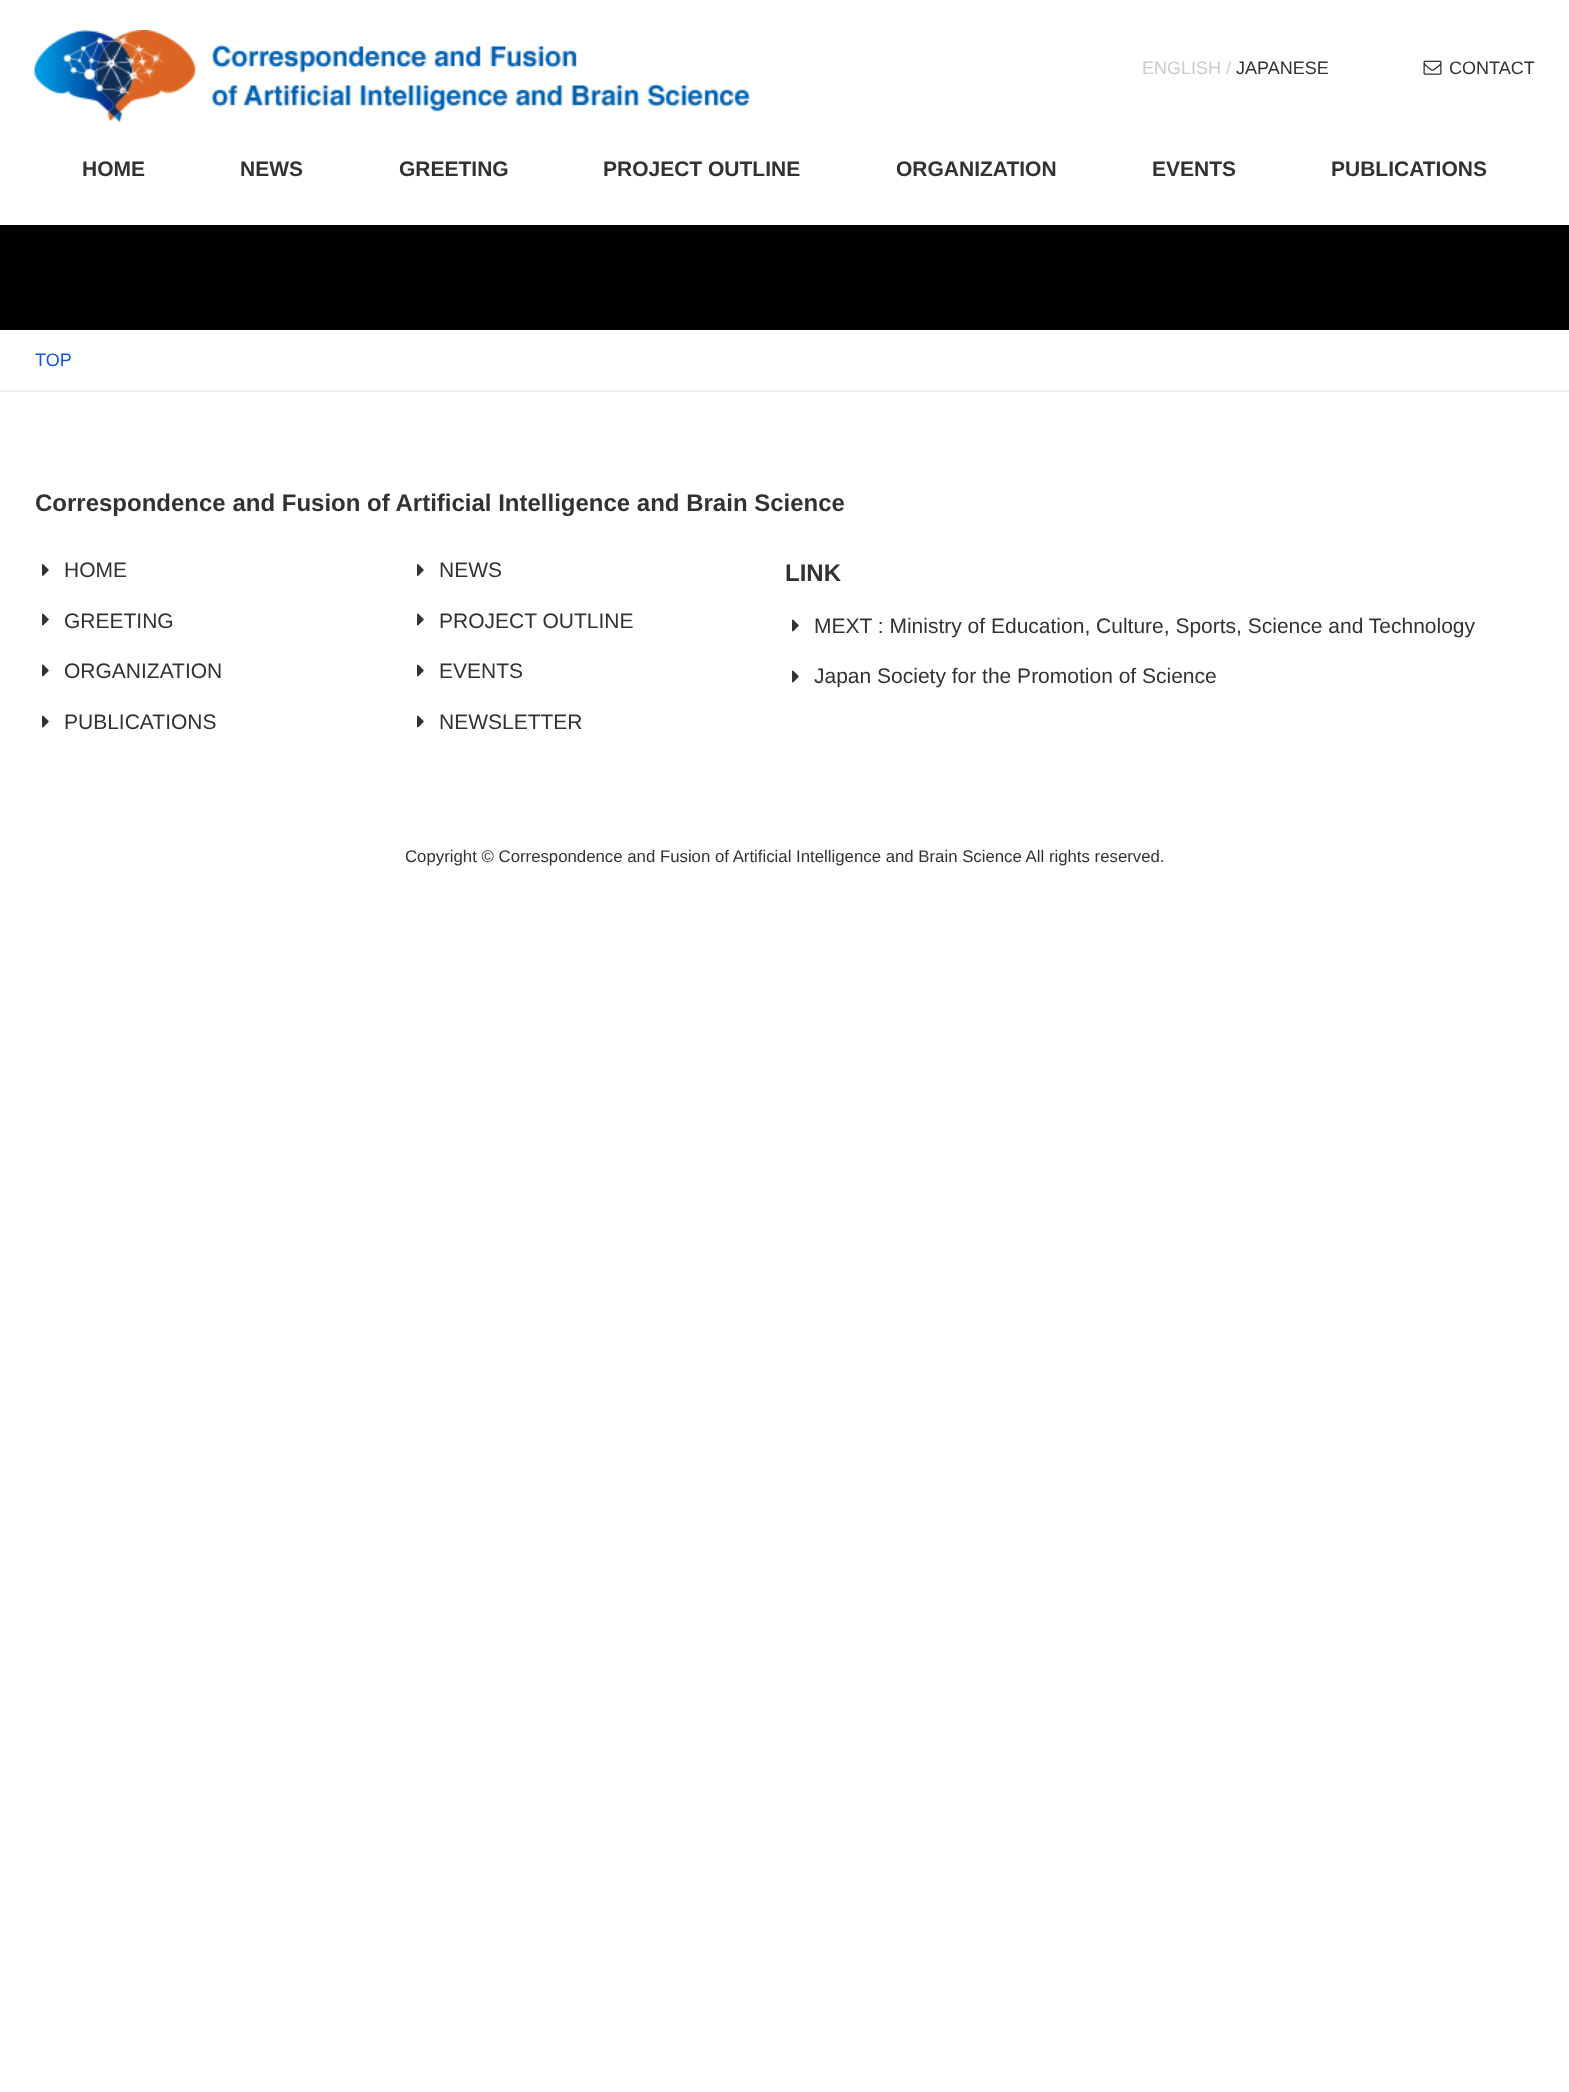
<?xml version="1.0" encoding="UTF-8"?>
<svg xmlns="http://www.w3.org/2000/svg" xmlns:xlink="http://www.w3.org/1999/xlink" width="1569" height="2092">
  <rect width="100%" height="100%" fill="#ffffff" />
  <image x="34" y="30" width="716" height="92" xlink:href="image1.png" />
  <image x="1423" y="60" width="19" height="15" xlink:href="image2.png" />
  <rect y="225" width="1569" height="105" fill="#000000" />
  <rect y="390" width="1569" height="2" fill="#eeeeee" />
  <image x="42" y="564" width="7" height="12" xlink:href="image3.png" />
  <image x="417" y="564" width="7" height="12" xlink:href="image3.png" />
  <image x="42" y="613" width="7" height="13" xlink:href="image4.png" />
  <image x="417" y="613" width="7" height="13" xlink:href="image4.png" />
  <image x="42" y="664" width="7" height="13" xlink:href="image4.png" />
  <image x="417" y="664" width="7" height="13" xlink:href="image4.png" />
  <image x="42" y="715" width="7" height="13" xlink:href="image4.png" />
  <image x="417" y="715" width="7" height="13" xlink:href="image4.png" />
  <image x="792" y="619" width="7" height="13" xlink:href="image4.png" />
  <image x="792" y="670" width="7" height="13" xlink:href="image4.png" />
  <text x="1142" y="74" style="font-family: Liberation Sans; font-size: 18px; fill: #cccccc">ENGLISH /</text>
  <text x="1236" y="74" style="font-family: Liberation Sans; font-size: 18px; fill: #323232">JAPANESE</text>
  <text x="1449" y="74" style="font-family: Liberation Sans; font-size: 18px; fill: #323232">CONTACT</text>
  <text x="82" y="176" style="font-family: Liberation Sans; font-size: 21px; font-weight: bold; fill: #323232">HOME</text>
  <text x="240" y="176" style="font-family: Liberation Sans; font-size: 21px; font-weight: bold; fill: #323232">NEWS</text>
  <text x="399" y="176" style="font-family: Liberation Sans; font-size: 21px; font-weight: bold; fill: #323232">GREETING</text>
  <text x="603" y="176" style="font-family: Liberation Sans; font-size: 21px; font-weight: bold; fill: #323232">PROJECT OUTLINE</text>
  <text x="896" y="176" style="font-family: Liberation Sans; font-size: 21px; font-weight: bold; fill: #323232">ORGANIZATION</text>
  <text x="1152" y="176" style="font-family: Liberation Sans; font-size: 21px; font-weight: bold; fill: #323232">EVENTS</text>
  <text x="1331" y="176" style="font-family: Liberation Sans; font-size: 21px; font-weight: bold; fill: #323232">PUBLICATIONS</text>
  <text x="35" y="366" style="font-family: Liberation Sans; font-size: 18px; fill: #1455d9">TOP</text>
  <text x="35" y="511" style="font-family: Liberation Sans; font-size: 24px; font-weight: bold; fill: #323232">Correspondence and Fusion of Artificial Intelligence and Brain Science</text>
  <text x="64" y="577" style="font-family: Liberation Sans; font-size: 21px; fill: #323232">HOME</text>
  <text x="439" y="577" style="font-family: Liberation Sans; font-size: 21px; fill: #323232">NEWS</text>
  <text x="64" y="628" style="font-family: Liberation Sans; font-size: 21px; fill: #323232">GREETING</text>
  <text x="439" y="628" style="font-family: Liberation Sans; font-size: 21px; fill: #323232">PROJECT OUTLINE</text>
  <text x="64" y="678" style="font-family: Liberation Sans; font-size: 21px; fill: #323232">ORGANIZATION</text>
  <text x="439" y="678" style="font-family: Liberation Sans; font-size: 21px; fill: #323232">EVENTS</text>
  <text x="64" y="729" style="font-family: Liberation Sans; font-size: 21px; fill: #323232">PUBLICATIONS</text>
  <text x="439" y="729" style="font-family: Liberation Sans; font-size: 21px; fill: #323232">NEWSLETTER</text>
  <text x="785" y="581" style="font-family: Liberation Sans; font-size: 24px; font-weight: bold; fill: #323232">LINK</text>
  <text x="814" y="633" style="font-family: Liberation Sans; font-size: 21px; fill: #323232">MEXT : Ministry of Education, Culture, Sports, Science and Technology</text>
  <text x="814" y="683" style="font-family: Liberation Sans; font-size: 21px; fill: #323232">Japan Society for the Promotion of Science</text>
  <text x="405" y="862" style="font-family: Liberation Sans; font-size: 16.8px; fill: #323232">Copyright © Correspondence and Fusion of Artificial Intelligence and Brain Science All rights reserved.</text>
</svg>
